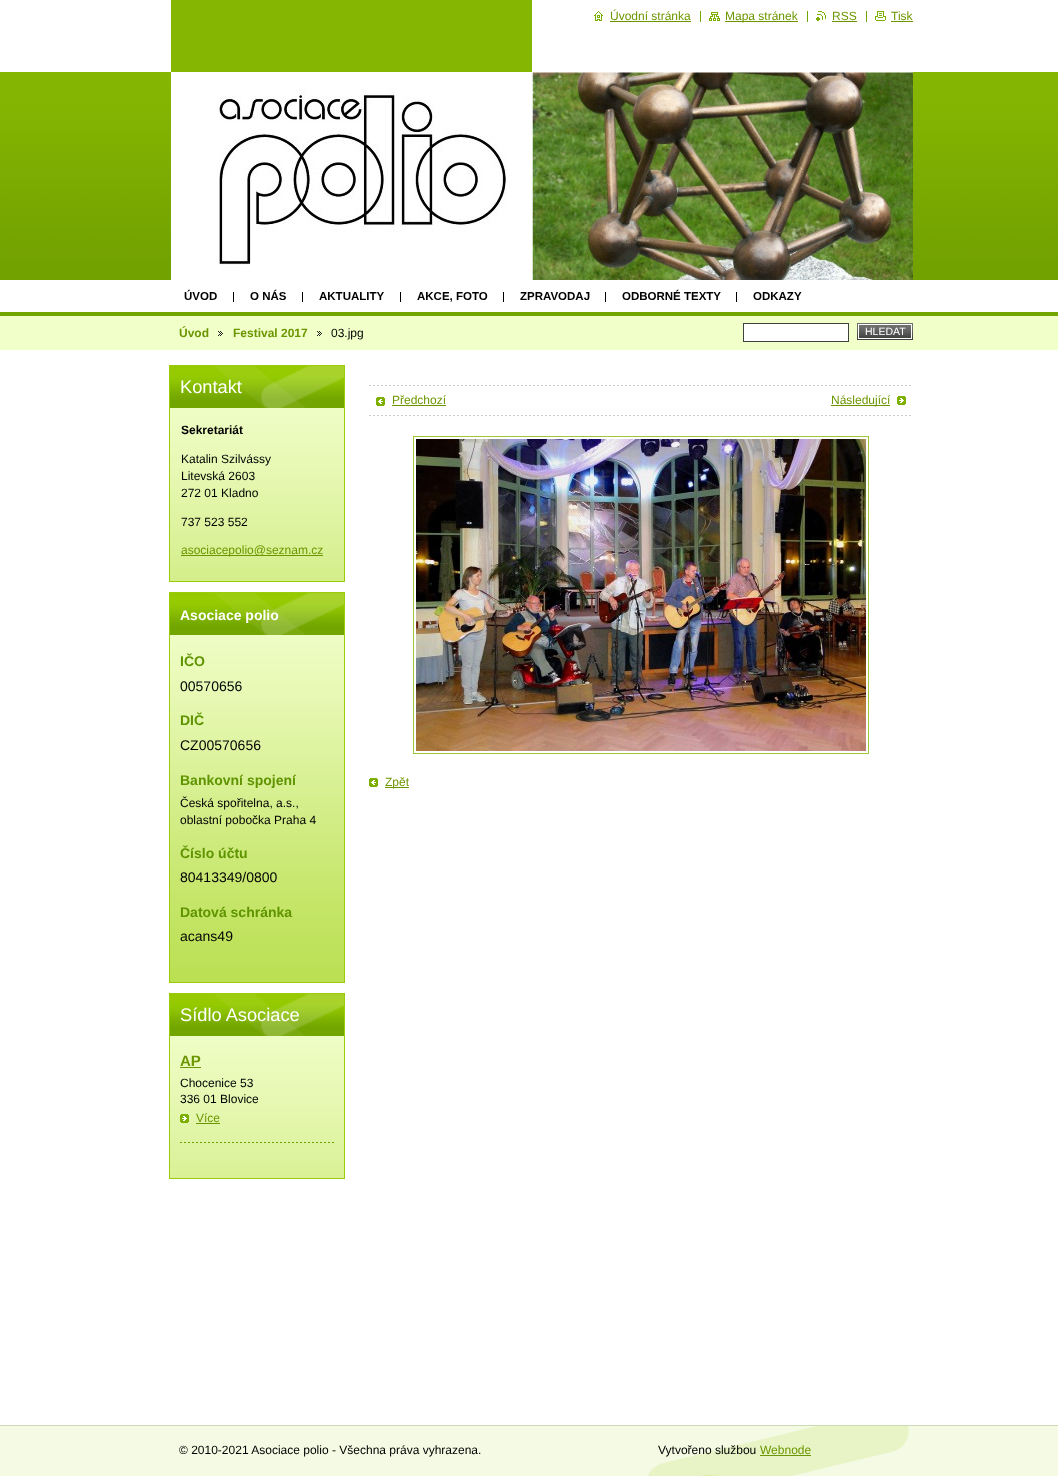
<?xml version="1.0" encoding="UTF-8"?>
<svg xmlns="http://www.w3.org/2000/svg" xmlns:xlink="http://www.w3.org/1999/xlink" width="1058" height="1476">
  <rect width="100%" height="100%" fill="#ffffff" />
  <image x="594" y="11" width="9" height="10" xlink:href="image1.png" />
  <rect x="610" y="21" width="81" height="1" fill="#6c9600" />
  <image x="709" y="12" width="11" height="9" xlink:href="image2.png" />
  <rect x="700" y="11" width="1" height="11" fill="#72a500" />
  <rect x="725" y="21" width="73" height="1" fill="#6c9600" />
  <image x="816" y="11" width="10" height="10" xlink:href="image3.png" />
  <rect x="807" y="11" width="1" height="11" fill="#72a500" />
  <rect x="832" y="21" width="25" height="1" fill="#6c9600" />
  <image x="875" y="11" width="11" height="10" xlink:href="image4.png" />
  <rect x="866" y="11" width="1" height="11" fill="#72a500" />
  <rect x="891" y="21" width="22" height="1" fill="#6c9600" />
  <image x="0" y="72" width="1058" height="208" xlink:href="image5.png" />
  <rect x="171" width="361" height="72" fill="#85b602" />
  <image x="171" y="72" width="742" height="208" xlink:href="image6.png" />
  <rect x="233" y="292" width="1" height="10" fill="#000000" />
  <rect x="302" y="292" width="1" height="10" fill="#000000" />
  <rect x="400" y="292" width="1" height="10" fill="#000000" />
  <rect x="503" y="292" width="1" height="10" fill="#000000" />
  <rect x="605" y="292" width="1" height="10" fill="#000000" />
  <rect x="736" y="292" width="1" height="10" fill="#000000" />
  <rect y="316" width="1058" height="34" fill="#f1ffc9" />
  <rect y="312" width="1058" height="4" fill="#72a500" />
  <image x="218" y="331" width="5" height="5" xlink:href="image7.png" />
  <image x="317" y="331" width="5" height="5" xlink:href="image7.png" />
  <rect x="743.5" y="323.5" width="105" height="18" fill="#ffffff" stroke="#404040" />
  <rect x="857" y="338" width="56" height="2" fill="#404040" />
  <image x="857" y="323" width="56" height="15" xlink:href="image8.png" />
  <image x="859" y="325" width="52" height="13" xlink:href="image9.png" />
  <rect x="858.5" y="324.5" width="53" height="14" fill="none" stroke="#ffffff" />
  <image x="170" y="408" width="174" height="173" xlink:href="image10.png" />
  <rect x="169.5" y="365.5" width="175" height="216" fill="none" stroke="#9bcc0b" />
  <image x="170" y="366" width="174" height="42" xlink:href="image11.png" />
  <rect x="181" y="555" width="142" height="1" fill="#6c9600" />
  <rect x="170" y="967" width="174" height="15" fill="#bbe053" />
  <image x="170" y="635" width="174" height="332" xlink:href="image12.png" />
  <rect x="169.5" y="592.5" width="175" height="390" fill="none" stroke="#9bcc0b" />
  <image x="170" y="593" width="174" height="42" xlink:href="image11.png" />
  <image x="170" y="1036" width="174" height="142" xlink:href="image13.png" />
  <rect x="169.5" y="993.5" width="175" height="185" fill="none" stroke="#9bcc0b" />
  <image x="170" y="994" width="174" height="42" xlink:href="image11.png" />
  <rect x="180" y="1067" width="21" height="1" fill="#6c9600" />
  <image x="180" y="1114" width="9" height="9" xlink:href="image14.png" />
  <rect x="196" y="1123" width="24" height="1" fill="#6c9600" />
  <image x="180" y="1142" width="154" height="1" xlink:href="image15.png" />
  <image x="369" y="385" width="542" height="1" xlink:href="image16.png" />
  <image x="369" y="415" width="542" height="1" xlink:href="image16.png" />
  <image x="376" y="397" width="9" height="9" xlink:href="image17.png" />
  <rect x="392" y="405" width="54" height="1" fill="#6c9600" />
  <rect x="831" y="405" width="59" height="1" fill="#6c9600" />
  <image x="897" y="396" width="9" height="9" xlink:href="image18.png" />
  <rect x="413.5" y="436.5" width="455" height="317" fill="none" stroke="#a0c63c" />
  <image x="416" y="439" width="450" height="312" xlink:href="image19.png" />
  <image x="369" y="778" width="9" height="9" xlink:href="image17.png" />
  <rect x="385" y="787" width="24" height="1" fill="#6c9600" />
  <rect y="1426" width="1058" height="50" fill="#f4fae3" />
  <rect y="1425" width="1058" height="1" fill="#cddbb3" />
  <image x="648" y="1426" width="261" height="50" xlink:href="image20.png" />
  <rect x="760" y="1455" width="51" height="1" fill="#6c9600" />
  <text x="610" y="20" style="font-family: Liberation Sans; font-size: 12px; fill: #6c9600">Úvodní stránka</text>
  <text x="725" y="20" style="font-family: Liberation Sans; font-size: 12px; fill: #6c9600">Mapa stránek</text>
  <text x="832" y="20" style="font-family: Liberation Sans; font-size: 12px; fill: #6c9600">RSS</text>
  <text x="891" y="20" style="font-family: Liberation Sans; font-size: 12px; fill: #6c9600">Tisk</text>
  <text x="184" y="300" style="font-family: Liberation Sans; font-size: 11.5px; font-weight: bold; fill: #000000">ÚVOD</text>
  <text x="250" y="300" style="font-family: Liberation Sans; font-size: 11.5px; font-weight: bold; fill: #000000">O NÁS</text>
  <text x="319" y="300" style="font-family: Liberation Sans; font-size: 11.5px; font-weight: bold; fill: #000000">AKTUALITY</text>
  <text x="417" y="300" style="font-family: Liberation Sans; font-size: 11.5px; font-weight: bold; fill: #000000">AKCE, FOTO</text>
  <text x="520" y="300" style="font-family: Liberation Sans; font-size: 11.5px; font-weight: bold; fill: #000000">ZPRAVODAJ</text>
  <text x="622" y="300" style="font-family: Liberation Sans; font-size: 11.5px; font-weight: bold; fill: #000000">ODBORNÉ TEXTY</text>
  <text x="753" y="300" style="font-family: Liberation Sans; font-size: 11.5px; font-weight: bold; fill: #000000">ODKAZY</text>
  <text x="179" y="337" style="font-family: Liberation Sans; font-size: 12px; font-weight: bold; fill: #6c9600">Úvod</text>
  <text x="233" y="337" style="font-family: Liberation Sans; font-size: 12px; font-weight: bold; fill: #6c9600">Festival 2017</text>
  <text x="331" y="337" style="font-family: Liberation Sans; font-size: 12px; fill: #000000">03.jpg</text>
  <text x="865" y="335" style="font-family: Liberation Sans; font-size: 10.5px; fill: #ffffff">HLEDAT</text>
  <text x="180" y="393" style="font-family: Liberation Sans; font-size: 18.25px; fill: #ffffff">Kontakt</text>
  <text x="181" y="434" style="font-family: Liberation Sans; font-size: 12px; font-weight: bold; fill: #000000">Sekretariát</text>
  <text x="181" y="463" style="font-family: Liberation Sans; font-size: 12px; fill: #000000">Katalin Szilvássy</text>
  <text x="181" y="480" style="font-family: Liberation Sans; font-size: 12px; fill: #000000">Litevská 2603</text>
  <text x="181" y="497" style="font-family: Liberation Sans; font-size: 12px; fill: #000000">272 01 Kladno</text>
  <text x="181" y="526" style="font-family: Liberation Sans; font-size: 12px; fill: #000000">737 523 552</text>
  <text x="181" y="554" style="font-family: Liberation Sans; font-size: 12px; fill: #6c9600">asociacepolio@seznam.cz</text>
  <text x="180" y="620" style="font-family: Liberation Sans; font-size: 14px; font-weight: bold; fill: #ffffff">Asociace polio</text>
  <text x="180" y="666" style="font-family: Liberation Sans; font-size: 14px; font-weight: bold; fill: #5f9400">IČO</text>
  <text x="180" y="691" style="font-family: Liberation Sans; font-size: 14px; fill: #000000">00570656</text>
  <text x="180" y="725" style="font-family: Liberation Sans; font-size: 14px; font-weight: bold; fill: #5f9400">DIČ</text>
  <text x="180" y="750" style="font-family: Liberation Sans; font-size: 14px; fill: #000000">CZ00570656</text>
  <text x="180" y="785" style="font-family: Liberation Sans; font-size: 14px; font-weight: bold; fill: #5f9400">Bankovní spojení</text>
  <text x="180" y="807" style="font-family: Liberation Sans; font-size: 12px; fill: #000000">Česká spořitelna, a.s.,</text>
  <text x="180" y="824" style="font-family: Liberation Sans; font-size: 12px; fill: #000000">oblastní pobočka Praha 4</text>
  <text x="180" y="858" style="font-family: Liberation Sans; font-size: 14px; font-weight: bold; fill: #5f9400">Číslo účtu</text>
  <text x="180" y="882" style="font-family: Liberation Sans; font-size: 14px; fill: #000000">80413349/0800</text>
  <text x="180" y="917" style="font-family: Liberation Sans; font-size: 14px; font-weight: bold; fill: #5f9400">Datová schránka</text>
  <text x="180" y="941" style="font-family: Liberation Sans; font-size: 14px; fill: #000000">acans49</text>
  <text x="180" y="1021" style="font-family: Liberation Sans; font-size: 18.25px; fill: #ffffff">Sídlo Asociace</text>
  <text x="180" y="1066" style="font-family: Liberation Sans; font-size: 15px; font-weight: bold; fill: #6c9600">AP</text>
  <text x="180" y="1087" style="font-family: Liberation Sans; font-size: 12px; fill: #000000">Chocenice 53</text>
  <text x="180" y="1103" style="font-family: Liberation Sans; font-size: 12px; fill: #000000">336 01 Blovice</text>
  <text x="196" y="1122" style="font-family: Liberation Sans; font-size: 12px; fill: #6c9600">Více</text>
  <text x="392" y="404" style="font-family: Liberation Sans; font-size: 12px; fill: #6c9600">Předchozí</text>
  <text x="831" y="404" style="font-family: Liberation Sans; font-size: 12px; fill: #6c9600">Následující</text>
  <text x="385" y="786" style="font-family: Liberation Sans; font-size: 12px; fill: #6c9600">Zpět</text>
  <text x="179" y="1454" style="font-family: Liberation Sans; font-size: 12px; fill: #000000">© 2010-2021 Asociace polio - Všechna práva vyhrazena.</text>
  <text x="658" y="1454" style="font-family: Liberation Sans; font-size: 12px; fill: #000000">Vytvořeno službou</text>
  <text x="760" y="1454" style="font-family: Liberation Sans; font-size: 12px; fill: #6c9600">Webnode</text>
</svg>
